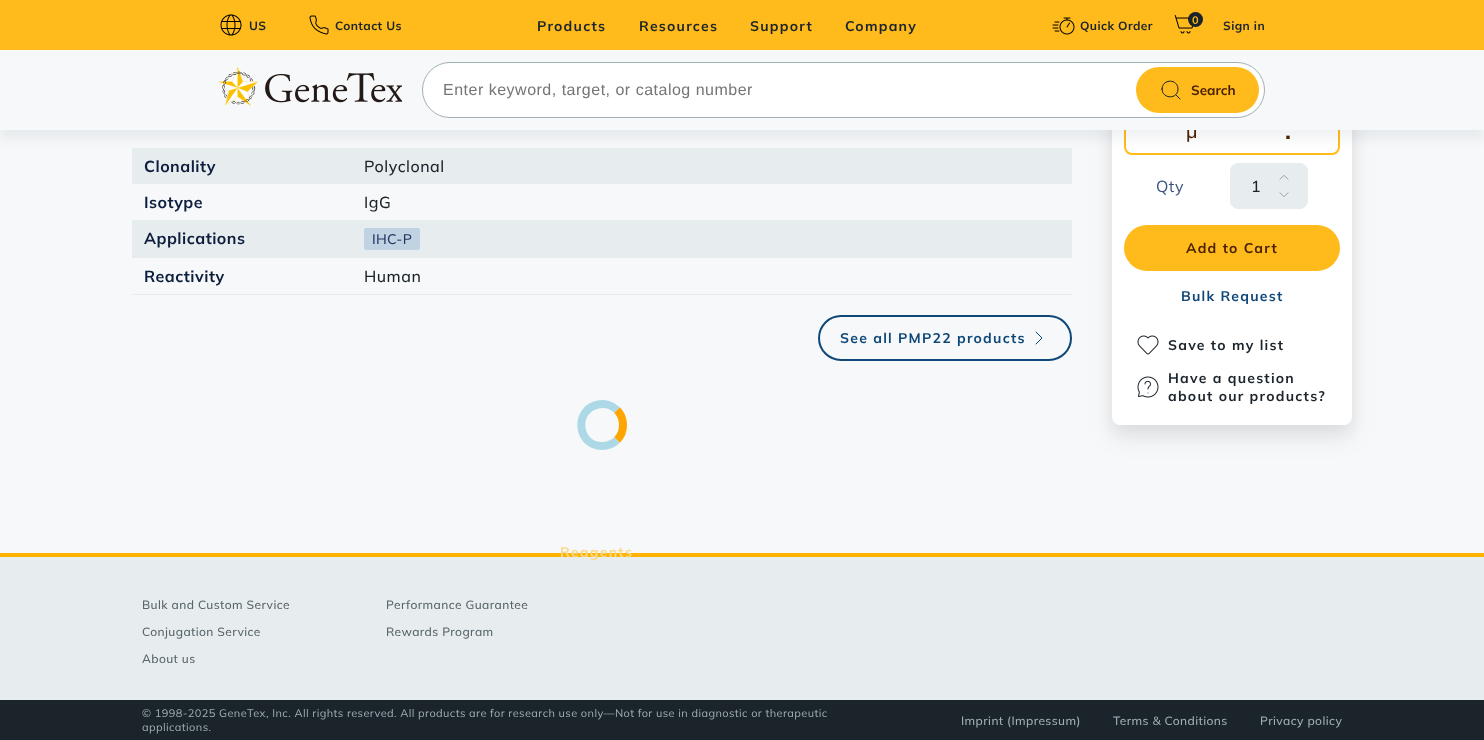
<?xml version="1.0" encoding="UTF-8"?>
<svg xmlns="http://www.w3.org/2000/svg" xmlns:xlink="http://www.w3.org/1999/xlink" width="1484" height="740">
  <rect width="100%" height="100%" fill="#f6f8f9" />
  <rect x="132" y="148" width="940" height="36" fill="#e7ecee" />
  <rect x="1112" y="105" width="240" height="332" rx="8" fill="#101418" fill-opacity="0.07" filter="blur(12px)" />
  <rect x="1112" y="101" width="240" height="332" rx="8" fill="#101418" fill-opacity="0.06" filter="blur(7px)" />
  <rect x="1112" y="93" width="240" height="332" rx="8" fill="#ffffff" />
  <rect x="1125" y="106" width="214" height="48" rx="7" fill="none" stroke="#ffbb1c" stroke-width="2" />
  <rect y="60" width="1484" height="80" fill="#08121e" fill-opacity="0.05" filter="blur(5px)" />
  <rect width="1484" height="50" fill="#ffbb1c" />
  <image x="220" y="14" width="22" height="22" xlink:href="image1.png" />
  <image x="309" y="15" width="20" height="20" xlink:href="image2.png" />
  <image x="1052" y="17" width="23" height="18" xlink:href="image3.png" />
  <image x="1174" y="15" width="20" height="19" xlink:href="image4.png" />
  <circle cx="1195.5" cy="19.5" r="7.5" fill="#1b242b" />
  <rect x="132" y="220" width="940" height="38" fill="#e7ecee" />
  <rect x="364" y="228" width="56" height="22" rx="2" fill="#bfd3e3" />
  <rect x="132" y="294" width="940" height="1" fill="#e7ecee" />
  <rect x="819" y="316" width="252" height="44" rx="22" fill="none" stroke="#0e4778" stroke-width="2" />
  <path d="M 1036 332 l 6 6 l -6 6" fill="none" stroke="#0e4778" stroke-linecap="round" stroke-linejoin="round" />
  <path d="M 617 410 c 8 8 8 22 0 30" fill="none" stroke="#ffa500" stroke-width="8" />
  <path d="M 617 440 c -4 4 -9.5 6 -15 6 c -25 0 -28.5 -36.5 -4 -41.5 c 6.5 -1.5 14 0.5 19 5.5" fill="none" stroke="#add8e6" stroke-width="8" />
  <rect x="1230.5" y="163.5" width="77" height="45" rx="7.5" fill="#e7ecee" stroke="#e7ecee" />
  <image x="1279" y="175" width="10" height="5" xlink:href="image6.png" />
  <image x="1279" y="192" width="10" height="5" xlink:href="image7.png" />
  <rect x="1125" y="226" width="214" height="44" rx="22" fill="#ffbb1c" stroke="#ffbb1c" stroke-width="2" />
  <image x="1137" y="335" width="22" height="20" xlink:href="image8.png" />
  <image x="1137" y="376" width="22" height="22" xlink:href="image9.png" />
  <rect y="553" width="1484" height="4" fill="#ffb300" />
  <rect y="557" width="1484" height="143" fill="#e7ecee" />
  <rect y="700" width="1484" height="40" fill="#1b242b" />
  <text x="249" y="30" style="font-family: Mulish; font-size: 12px; font-weight: bold; letter-spacing: 0.4px; fill: #1b242b">US</text>
  <text x="335" y="30" style="font-family: Mulish; font-size: 12px; font-weight: bold; letter-spacing: 0.4px; fill: #1b242b">Contact Us</text>
  <text x="537" y="31" style="font-family: Mulish; font-size: 14px; font-weight: bold; letter-spacing: 1.25px; fill: #1b242b">Products</text>
  <text x="560" y="557" style="font-family: Mulish; font-size: 14px; font-weight: bold; letter-spacing: 1.25px; fill: #f9d98a">Reagents</text>
  <text x="639" y="31" style="font-family: Mulish; font-size: 14px; font-weight: bold; letter-spacing: 1.25px; fill: #1b242b">Resources</text>
  <text x="750" y="31" style="font-family: Mulish; font-size: 14px; font-weight: bold; letter-spacing: 1.25px; fill: #1b242b">Support</text>
  <text x="845" y="31" style="font-family: Mulish; font-size: 14px; font-weight: bold; letter-spacing: 1.25px; fill: #1b242b">Company</text>
  <text x="1080" y="30" style="font-family: Mulish; font-size: 12px; font-weight: bold; letter-spacing: 0.4px; fill: #1b242b">Quick Order</text>
  <text x="1192" y="24" style="font-family: Mulish; font-size: 11px; font-weight: bold; letter-spacing: 0.4px; fill: #ffbb1c">0</text>
  <text x="1223" y="30" style="font-family: Mulish; font-size: 12px; font-weight: bold; letter-spacing: 0.4px; fill: #1b242b">Sign in</text>
  <text x="144" y="172" style="font-family: Mulish; font-size: 16px; font-weight: bold; letter-spacing: 0.5px; fill: #0d1d3d">Clonality</text>
  <text x="364" y="172" style="font-family: Mulish; font-size: 16px; font-weight: 500; letter-spacing: 0.5px; fill: #1b242b">Polyclonal</text>
  <text x="144" y="208" style="font-family: Mulish; font-size: 16px; font-weight: bold; letter-spacing: 0.5px; fill: #0d1d3d">Isotype</text>
  <text x="364" y="208" style="font-family: Mulish; font-size: 16px; font-weight: 500; letter-spacing: 0.5px; fill: #1b242b">IgG</text>
  <text x="144" y="244" style="font-family: Mulish; font-size: 16px; font-weight: bold; letter-spacing: 0.5px; fill: #0d1d3d">Applications</text>
  <text x="372" y="244" style="font-family: Mulish; font-size: 14px; font-weight: 500; letter-spacing: 0.25px; fill: #223861">IHC-P</text>
  <text x="144" y="282" style="font-family: Mulish; font-size: 16px; font-weight: bold; letter-spacing: 0.5px; fill: #0d1d3d">Reactivity</text>
  <text x="364" y="282" style="font-family: Mulish; font-size: 16px; font-weight: 500; letter-spacing: 0.5px; fill: #1b242b">Human</text>
  <text x="840" y="343" style="font-family: Mulish; font-size: 14px; font-weight: bold; letter-spacing: 1.25px; fill: #0e4778">See all PMP22 products</text>
  <text x="1186" y="138" style="font-family: Liberation Sans; font-size: 20px; fill: #4a2100">μ</text>
  <rect y="56" width="1484" height="74" fill="#f6f8f9" />
  <rect x="422.5" y="62.5" width="842" height="55" rx="27.5" fill="#ffffff" stroke="#a0afb4" />
  <rect x="1136" y="67" width="123" height="46" rx="23" fill="#ffbb1c" />
  <text x="1191" y="95" style="font-family: Mulish; font-size: 13.5px; font-weight: bold; fill: #4a2100">Search</text>
  <path d="M 1176 95 l 4 4 m -18 -10 c 0 10.5 16 10.5 16 0 c 0 -10.5 -16 -10.5 -16 0 z" fill="none" stroke="#1b242b" stroke-linecap="round" stroke-linejoin="round" />
  <text x="443" y="95" style="font-family: Liberation Sans; font-size: 16px; letter-spacing: 0.5px; fill: #757575">Enter keyword, target, or catalog number</text>
  <image x="219" y="67" width="183" height="39" xlink:href="image5.png" />
  <text x="1285" y="139" style="font-family: Mulish; font-size: 24px; font-weight: bold; fill: #4a2100">.</text>
  <text x="1156" y="192" style="font-family: Mulish; font-size: 16px; letter-spacing: 0.5px; fill: #3b5580">Qty</text>
  <text x="1251" y="192" style="font-family: Mulish; font-size: 16px; font-weight: 500; letter-spacing: 0.5px; fill: #1b242b">1</text>
  <text x="1186" y="253" style="font-family: Mulish; font-size: 14px; font-weight: bold; letter-spacing: 1.25px; fill: #4a2100">Add to Cart</text>
  <text x="1181" y="301" style="font-family: Mulish; font-size: 14px; font-weight: bold; letter-spacing: 1.25px; fill: #0e4778">Bulk Request</text>
  <text x="1168" y="350" style="font-family: Mulish; font-size: 14px; font-weight: bold; letter-spacing: 1.25px; fill: #1b242b">Save to my list</text>
  <text x="1168" y="383" style="font-family: Mulish; font-size: 14px; font-weight: bold; letter-spacing: 1.25px; fill: #1b242b">Have a question</text>
  <text x="1168" y="401" style="font-family: Mulish; font-size: 14px; font-weight: bold; letter-spacing: 1.25px; fill: #1b242b">about our products?</text>
  <text x="142" y="609" style="font-family: Mulish; font-size: 12px; font-weight: 500; letter-spacing: 0.4px; fill: #56656b">Bulk and Custom Service</text>
  <text x="142" y="636" style="font-family: Mulish; font-size: 12px; font-weight: 500; letter-spacing: 0.4px; fill: #56656b">Conjugation Service</text>
  <text x="142" y="663" style="font-family: Mulish; font-size: 12px; font-weight: 500; letter-spacing: 0.4px; fill: #56656b">About us</text>
  <text x="386" y="609" style="font-family: Mulish; font-size: 12px; font-weight: 500; letter-spacing: 0.4px; fill: #56656b">Performance Guarantee</text>
  <text x="386" y="636" style="font-family: Mulish; font-size: 12px; font-weight: 500; letter-spacing: 0.4px; fill: #56656b">Rewards Program</text>
  <text x="142" y="717" style="font-family: Mulish; font-size: 11px; letter-spacing: 0.4px; fill: #a0afb4">© 1998-2025 GeneTex, Inc. All rights reserved. All products are for research use only—Not for use in diagnostic or therapeutic</text>
  <text x="142" y="731" style="font-family: Mulish; font-size: 11px; letter-spacing: 0.4px; fill: #a0afb4">applications.</text>
  <text x="961" y="725" style="font-family: Mulish; font-size: 12px; font-weight: 500; letter-spacing: 0.4px; fill: #a0afb4">Imprint (Impressum)</text>
  <text x="1113" y="725" style="font-family: Mulish; font-size: 12px; font-weight: 500; letter-spacing: 0.4px; fill: #a0afb4">Terms &amp; Conditions</text>
  <text x="1260" y="725" style="font-family: Mulish; font-size: 12px; font-weight: 500; letter-spacing: 0.4px; fill: #a0afb4">Privacy policy</text>
</svg>
